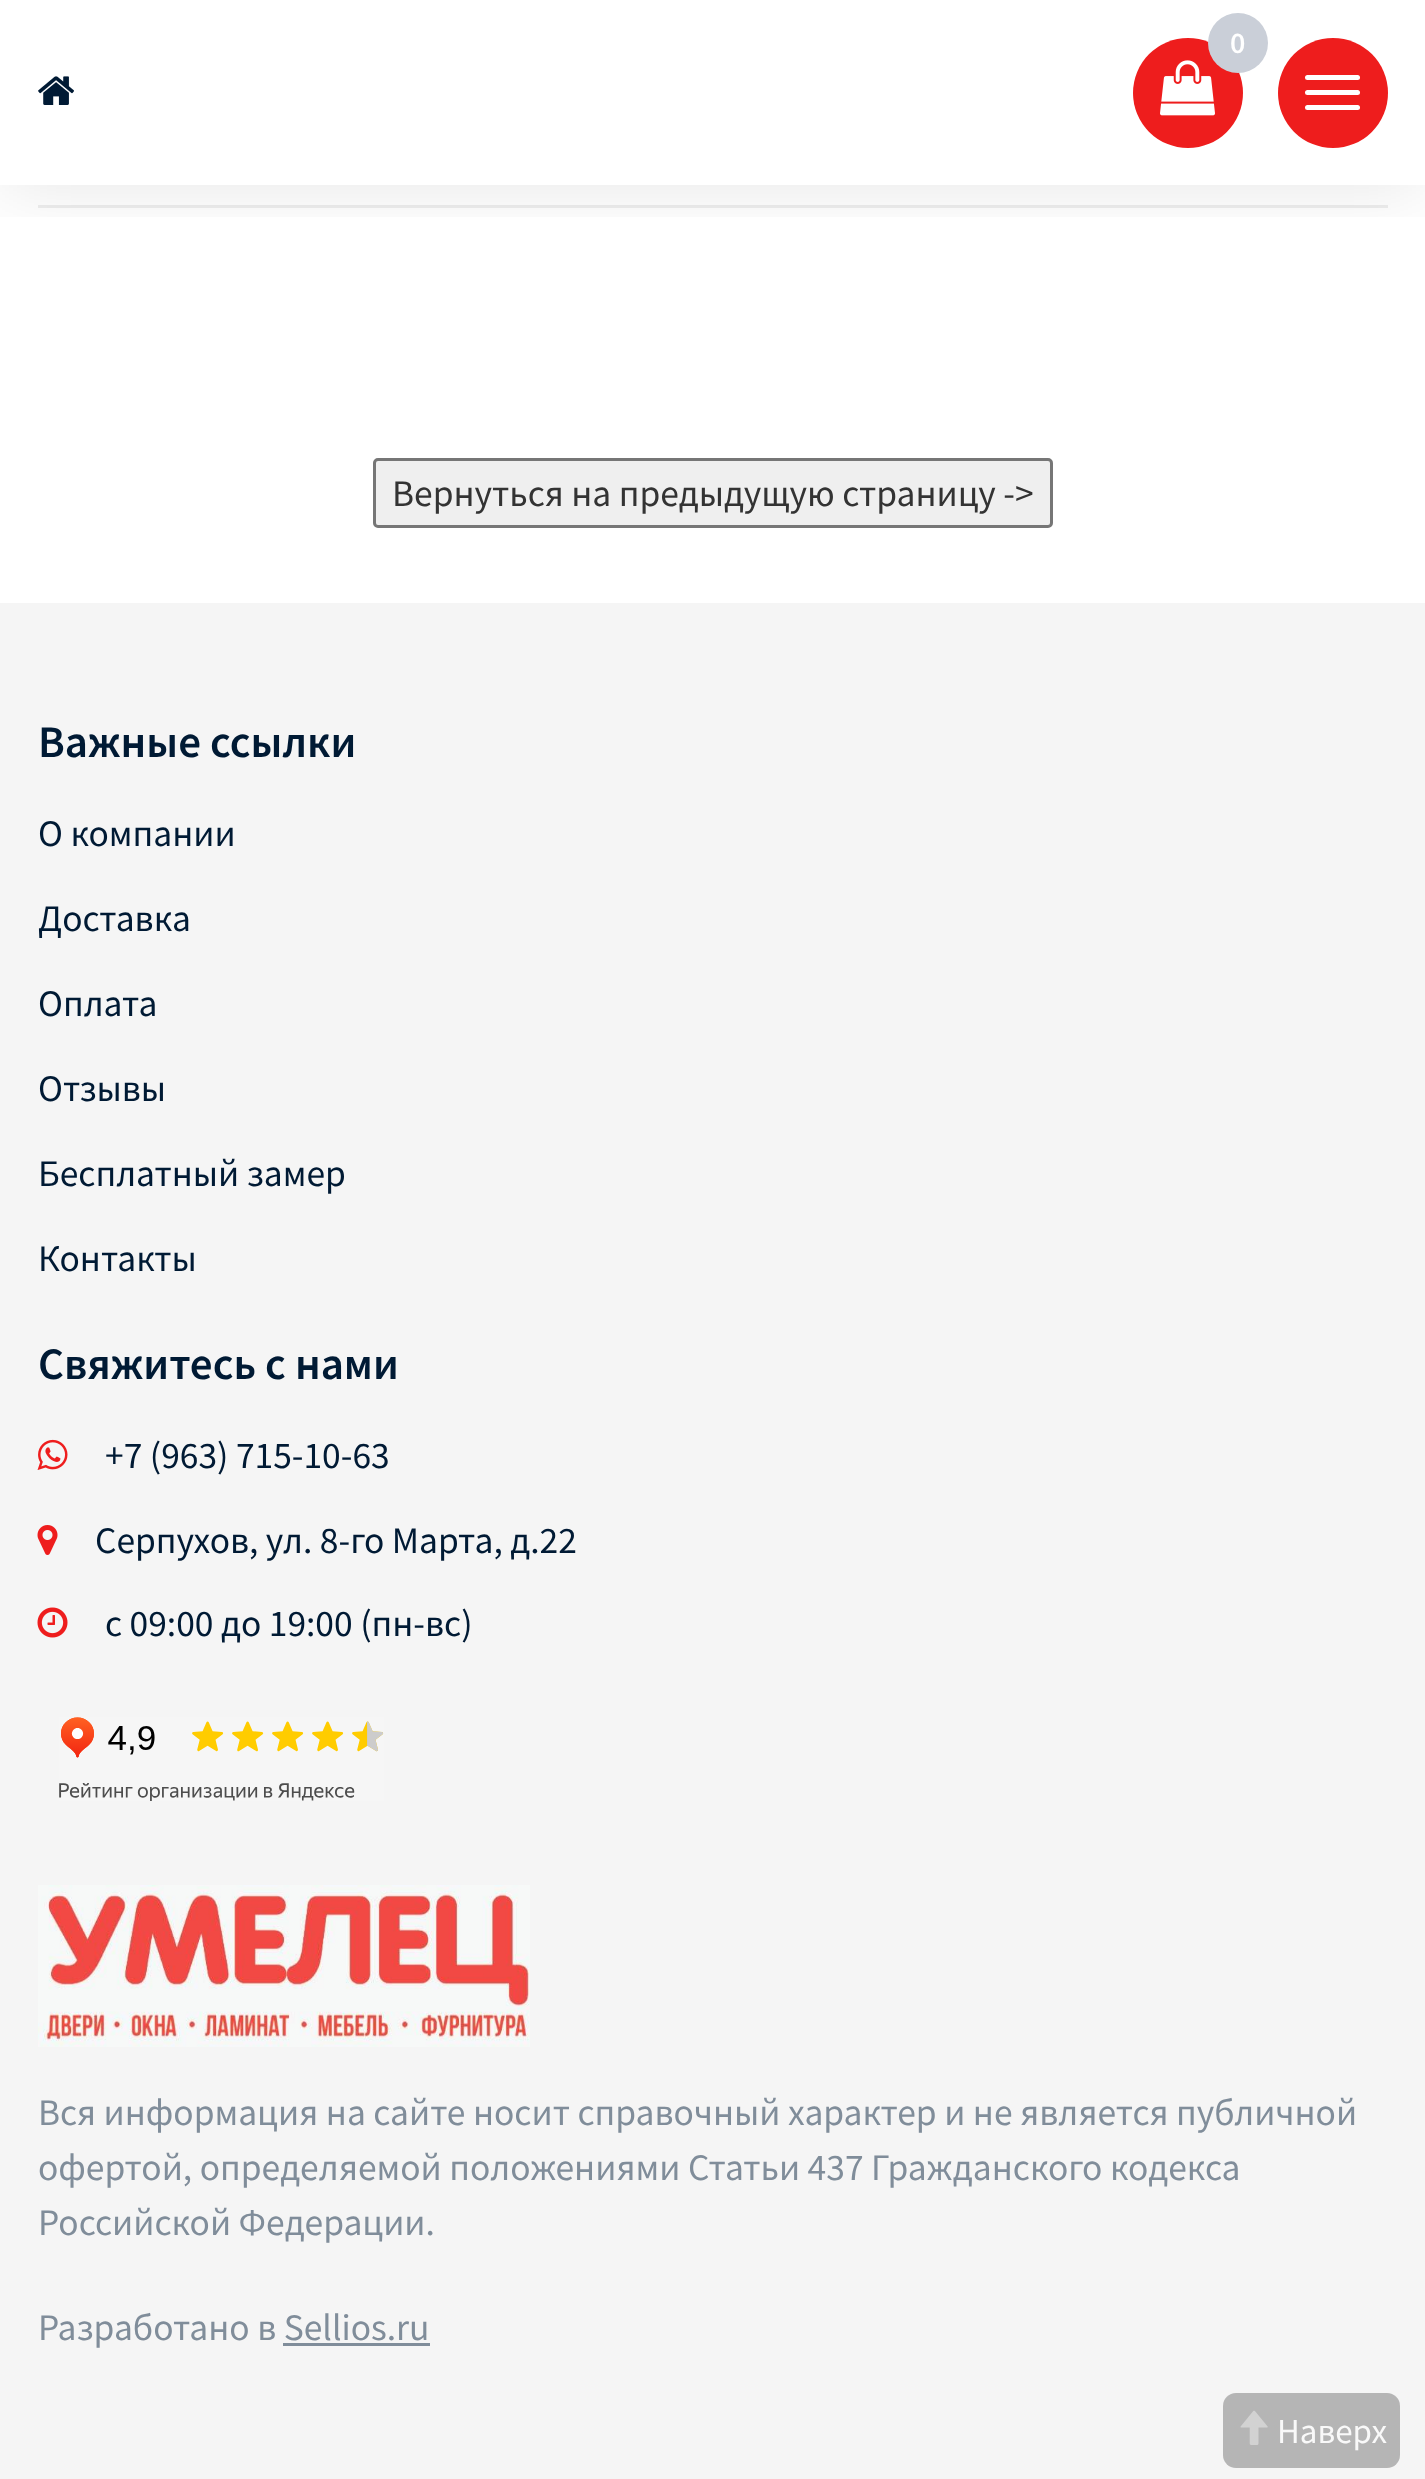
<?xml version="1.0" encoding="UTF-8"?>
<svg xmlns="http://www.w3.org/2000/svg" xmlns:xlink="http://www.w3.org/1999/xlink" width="1425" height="2479">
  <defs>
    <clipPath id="clip1"><rect x="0" y="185" width="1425" height="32" /></clipPath>
  </defs>
  <rect width="100%" height="100%" fill="#ffffff" />
  <rect x="38" y="205" width="1350" height="3" fill="#eeeeee" />
  <g clip-path="url(#clip1)">
    <rect width="1425" height="185" fill="#000000" fill-opacity="0.1" filter="blur(37.5px)" />
  </g>
  <image x="38" y="76" width="36" height="29" xlink:href="image1.png" />
  <circle cx="1188" cy="93" r="55" fill="#ee1d1d" />
  <image x="1160" y="60" width="55" height="56" xlink:href="image2.png" />
  <circle cx="1238" cy="43" r="30" fill="#cacfd8" />
  <circle cx="1333" cy="93" r="55" fill="#ee1d1d" />
  <rect x="1305" y="75" width="55" height="5" rx="2.5" fill="#ffffff" />
  <rect x="1305" y="90" width="55" height="5" rx="2.5" fill="#ffffff" />
  <rect x="1305" y="105" width="55" height="5" rx="2.5" fill="#ffffff" />
  <rect x="374.5" y="459.5" width="677" height="67" rx="3.5" fill="#efefef" stroke="#767676" stroke-width="3" />
  <rect y="603" width="1425" height="1876" fill="#f5f5f5" />
  <image x="37" y="1439" width="31" height="31" xlink:href="image3.png" />
  <image x="37" y="1525" width="21" height="30" xlink:href="image4.png" />
  <image x="37" y="1607" width="31" height="31" xlink:href="image5.png" />
  <image x="59" y="1717" width="325" height="84" xlink:href="image6.png" />
  <image x="38" y="1885" width="492" height="162" xlink:href="image7.png" />
  <rect x="283" y="2343" width="147" height="3" fill="#808d9a" />
  <rect x="1223" y="2393" width="177" height="75" rx="13" fill="#b5b5b5" />
  <image x="1240" y="2410" width="28" height="35" xlink:href="image8.png" />
  <text x="1230" y="53" style="font-family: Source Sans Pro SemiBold; font-size: 30px; font-weight: 600; fill: #ffffff">0</text>
  <text x="392" y="506" style="font-family: Source Sans Pro; font-size: 37.5px; fill: #333333">Вернуться на предыдущую страницу -&gt;</text>
  <text x="38" y="757" style="font-family: Source Sans Pro SemiBold; font-size: 45px; font-weight: 600; fill: #001a34">Важные ссылки</text>
  <text x="38" y="846" style="font-family: Source Sans Pro; font-size: 37.5px; fill: #001a34">О компании</text>
  <text x="38" y="931" style="font-family: Source Sans Pro; font-size: 37.5px; fill: #001a34">Доставка</text>
  <text x="38" y="1016" style="font-family: Source Sans Pro; font-size: 37.5px; fill: #001a34">Оплата</text>
  <text x="38" y="1101" style="font-family: Source Sans Pro; font-size: 37.5px; fill: #001a34">Отзывы</text>
  <text x="38" y="1186" style="font-family: Source Sans Pro; font-size: 37.5px; fill: #001a34">Бесплатный замер</text>
  <text x="38" y="1271" style="font-family: Source Sans Pro; font-size: 37.5px; fill: #001a34">Контакты</text>
  <text x="38" y="1379" style="font-family: Source Sans Pro SemiBold; font-size: 45px; font-weight: 600; fill: #001a34">Свяжитесь с нами</text>
  <text x="105" y="1468" style="font-family: Source Sans Pro; font-size: 37.5px; fill: #001a34">+7 (963) 715-10-63</text>
  <text x="95" y="1553" style="font-family: Source Sans Pro; font-size: 37.5px; fill: #001a34">Серпухов, ул. 8-го Марта, д.22</text>
  <text x="105" y="1636" style="font-family: Source Sans Pro; font-size: 37.5px; fill: #001a34">с 09:00 до 19:00 (пн-вс)</text>
  <text x="38" y="2125" style="font-family: Source Sans Pro; font-size: 37.5px; fill: #808d9a">Вся информация на сайте носит справочный характер и не является публичной</text>
  <text x="38" y="2180" style="font-family: Source Sans Pro; font-size: 37.5px; fill: #808d9a">офертой, определяемой положениями Статьи 437 Гражданского кодекса</text>
  <text x="38" y="2235" style="font-family: Source Sans Pro; font-size: 37.5px; fill: #808d9a">Российской Федерации.</text>
  <text x="38" y="2340" style="font-family: Source Sans Pro; font-size: 37.5px; fill: #808d9a">Разработано в Sellios.ru</text>
  <text x="1277" y="2443" style="font-family: Source Sans Pro; font-size: 35px; fill: #f9f9f9">Наверх</text>
</svg>
